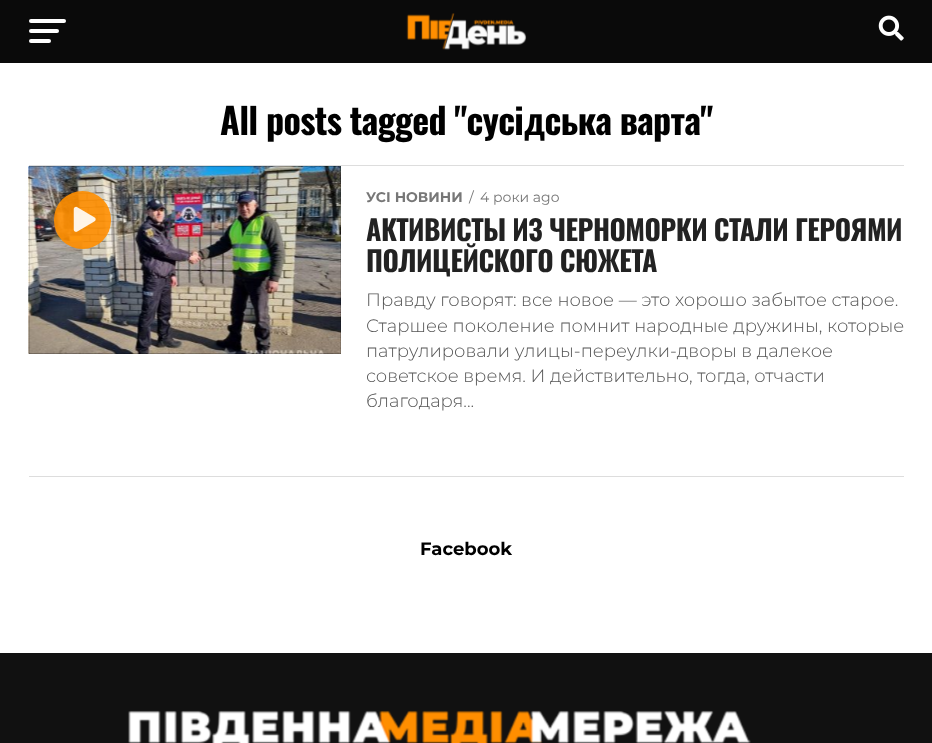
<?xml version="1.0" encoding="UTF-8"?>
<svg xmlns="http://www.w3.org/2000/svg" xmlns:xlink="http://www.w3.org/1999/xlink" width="932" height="743">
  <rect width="100%" height="100%" fill="#ffffff" />
  <rect width="932" height="63" fill="#0a0a0a" />
  <rect x="29" y="19" width="37" height="4" rx="2" fill="#ffffff" />
  <rect x="29" y="29" width="30" height="4" rx="2" fill="#ffffff" />
  <rect x="29" y="39" width="22" height="4" rx="2" fill="#ffffff" />
  <image x="406" y="13" width="121" height="37" xlink:href="image1.png" />
  <image x="878" y="15" width="26" height="26" xlink:href="image2.png" />
  <rect x="29" y="165" width="875" height="1" fill="#dddddd" />
  <rect x="29" y="166" width="312" height="188" fill="#000000" />
  <image x="28" y="166" width="313" height="188" xlink:href="image3.png" />
  <rect x="54" y="191" width="57" height="58" rx="28.5" fill="#ff8e00" fill-opacity="0.9" />
  <image x="73" y="206" width="23" height="26" xlink:href="image4.png" />
  <rect x="29" y="476" width="875" height="1" fill="#dddddd" />
  <rect y="653" width="932" height="90" fill="#111111" />
  <image x="128" y="710" width="623" height="33" xlink:href="image5.png" />
  <text x="220" y="135" style="font-family: Oswald; font-size: 36px; font-weight: bold; letter-spacing: -0.7px; fill: #000000">All posts tagged "сусідська варта"</text>
  <text x="366" y="202" style="font-family: Montserrat; font-size: 14px; font-weight: bold; fill: #777777">УСІ НОВИНИ</text>
  <text x="469" y="202" style="font-family: Montserrat; font-size: 14px; fill: #777777">/</text>
  <text x="480" y="202" style="font-family: Montserrat; font-size: 14px; fill: #777777">4 роки ago</text>
  <text x="366" y="241" style="font-family: Oswald; font-size: 28px; font-weight: bold; letter-spacing: -0.55px; fill: #222222">АКТИВИСТЫ ИЗ ЧЕРНОМОРКИ СТАЛИ ГЕРОЯМИ</text>
  <text x="366" y="272" style="font-family: Oswald; font-size: 28px; font-weight: bold; letter-spacing: -0.55px; fill: #222222">ПОЛИЦЕЙСКОГО СЮЖЕТА</text>
  <text x="366" y="306" style="font-family: Montserrat; font-size: 18px; font-weight: 300; fill: #555555">Правду говорят: все новое — это хорошо забытое старое.</text>
  <text x="366" y="332" style="font-family: Montserrat; font-size: 18px; font-weight: 300; fill: #555555">Старшее поколение помнит народные дружины, которые</text>
  <text x="366" y="357" style="font-family: Montserrat; font-size: 18px; font-weight: 300; fill: #555555">патрулировали улицы-переулки-дворы в далекое</text>
  <text x="366" y="382" style="font-family: Montserrat; font-size: 18px; font-weight: 300; fill: #555555">советское время. И действительно, тогда, отчасти</text>
  <text x="366" y="407" style="font-family: Montserrat; font-size: 18px; font-weight: 300; fill: #555555">благодаря...</text>
  <text x="420" y="555" style="font-family: Montserrat; font-size: 18px; font-weight: bold; fill: #000000">Facebook</text>
</svg>
